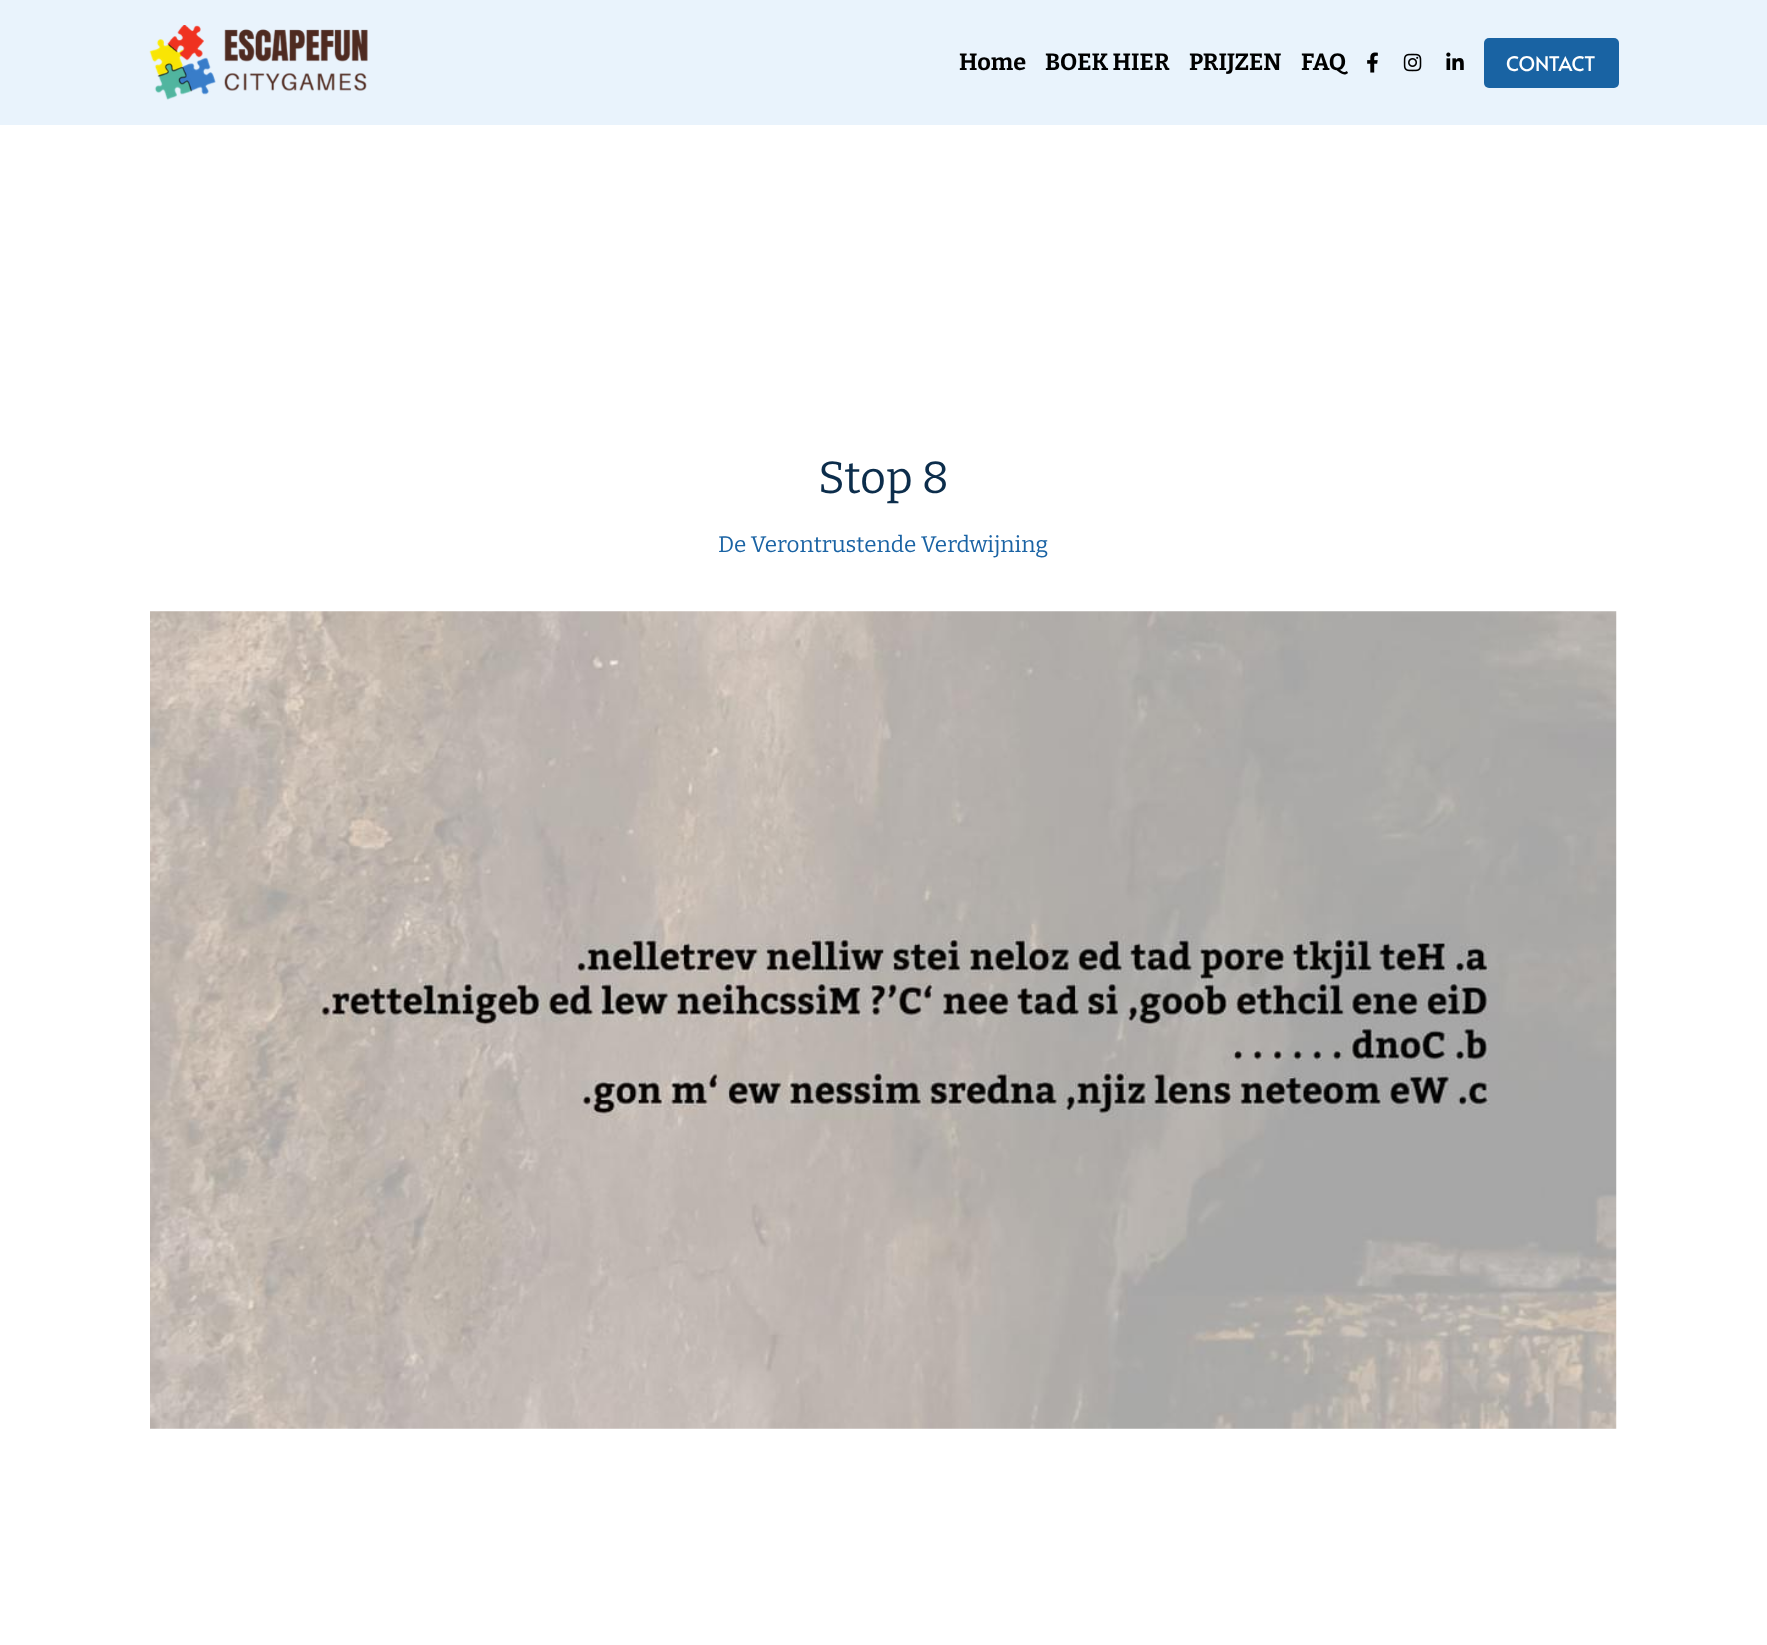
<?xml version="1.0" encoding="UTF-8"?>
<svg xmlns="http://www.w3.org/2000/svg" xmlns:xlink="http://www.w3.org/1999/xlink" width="1767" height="1645">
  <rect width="100%" height="100%" fill="#ffffff" />
  <rect width="1767" height="125" fill="#e9f3fc" />
  <image x="149" y="25" width="219" height="75" xlink:href="image1.png" />
  <image x="1367" y="52" width="11" height="21" xlink:href="image2.png" />
  <image x="1403" y="53" width="19" height="19" xlink:href="image3.png" />
  <image x="1446" y="52" width="18" height="18" xlink:href="image4.png" />
  <rect x="1484" y="38" width="135" height="50" rx="5" fill="#ffffff" fill-opacity="0.5" filter="blur(0.5px)" />
  <rect x="1484" y="38" width="135" height="50" rx="5" fill="#1963a3" />
  <image x="150" y="611" width="1467" height="818" xlink:href="image5.png" />
  <text x="959" y="70" style="font-family: Bitter; font-size: 23.5px; font-weight: bold; fill: #000000">Home</text>
  <text x="1045" y="70" style="font-family: Bitter; font-size: 23.5px; font-weight: bold; fill: #000000">BOEK HIER</text>
  <text x="1189" y="70" style="font-family: Bitter; font-size: 23.5px; font-weight: bold; fill: #000000">PRIJZEN</text>
  <text x="1301" y="70" style="font-family: Bitter; font-size: 23.5px; font-weight: bold; fill: #000000">FAQ</text>
  <text x="1506" y="71" style="font-family: Alata; font-size: 20px; fill: #ffffff">CONTACT</text>
  <text x="818" y="493" style="font-family: Bitter; font-size: 45px; fill: #0c2d4b">Stop 8</text>
  <text x="718" y="552" style="font-family: Bitter; font-size: 22.5px; fill: #1a63a4">De Verontrustende Verdwijning</text>
</svg>
